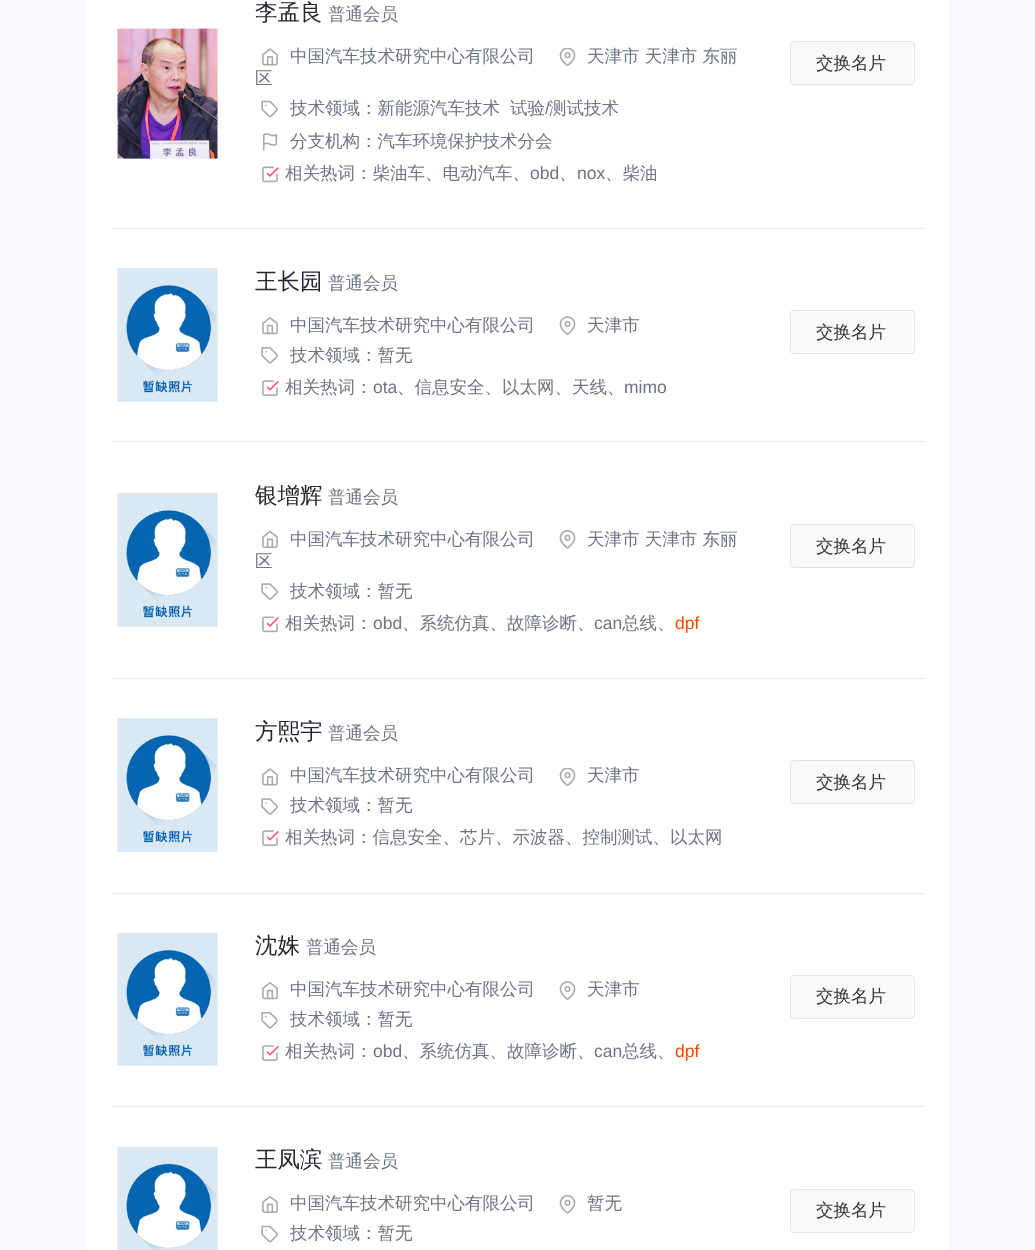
<?xml version="1.0" encoding="UTF-8"?>
<svg xmlns="http://www.w3.org/2000/svg" xmlns:xlink="http://www.w3.org/1999/xlink" width="1035" height="1250">
  <rect width="100%" height="100%" fill="#f7f9fc" />
  <rect x="86" width="863" height="1250" fill="#ffffff" />
  <rect x="118" y="44" width="100" height="100" rx="4" fill="#f9f9f9" />
  <image x="117" y="28" width="101" height="131" xlink:href="image1.png" />
  <image x="262" y="48" width="16" height="18" xlink:href="image2.png" />
  <image x="559" y="48" width="17" height="18" xlink:href="image3.png" />
  <image x="261" y="100" width="17" height="18" xlink:href="image4.png" />
  <image x="262" y="133" width="16" height="18" xlink:href="image5.png" />
  <image x="262" y="166" width="17" height="17" xlink:href="image6.png" />
  <rect x="790.5" y="41.5" width="124" height="43" rx="3.5" fill="#f9f9f9" stroke="#e5e5e5" />
  <rect x="111" y="228" width="813" height="1" fill="#ebebeb" />
  <rect x="118" y="285" width="100" height="100" rx="4" fill="#f9f9f9" />
  <image x="117" y="268" width="101" height="134" xlink:href="image7.png" />
  <image x="262" y="317" width="16" height="18" xlink:href="image8.png" />
  <image x="559" y="316" width="17" height="19" xlink:href="image9.png" />
  <image x="261" y="347" width="17" height="17" xlink:href="image10.png" />
  <image x="262" y="380" width="17" height="16" xlink:href="image11.png" />
  <rect x="790.5" y="310.5" width="124" height="43" rx="3.5" fill="#f9f9f9" stroke="#e5e5e5" />
  <rect x="111" y="441" width="813" height="1" fill="#ebebeb" />
  <rect x="118" y="510" width="100" height="100" rx="4" fill="#f9f9f9" />
  <image x="117" y="493" width="101" height="134" xlink:href="image12.png" />
  <image x="262" y="530" width="16" height="18" xlink:href="image13.png" />
  <image x="559" y="530" width="17" height="19" xlink:href="image14.png" />
  <image x="261" y="583" width="17" height="17" xlink:href="image15.png" />
  <image x="262" y="616" width="17" height="17" xlink:href="image6.png" />
  <rect x="790.5" y="524.5" width="124" height="43" rx="3.5" fill="#f9f9f9" stroke="#e5e5e5" />
  <rect x="111" y="678" width="813" height="1" fill="#ebebeb" />
  <rect x="118" y="735" width="100" height="100" rx="4" fill="#f9f9f9" />
  <image x="117" y="718" width="101" height="134" xlink:href="image7.png" />
  <image x="262" y="768" width="16" height="18" xlink:href="image2.png" />
  <image x="559" y="768" width="17" height="18" xlink:href="image3.png" />
  <image x="261" y="798" width="17" height="17" xlink:href="image15.png" />
  <image x="262" y="830" width="17" height="16" xlink:href="image11.png" />
  <rect x="790.5" y="760.5" width="124" height="43" rx="3.5" fill="#f9f9f9" stroke="#e5e5e5" />
  <rect x="111" y="893" width="813" height="1" fill="#ebebeb" />
  <rect x="118" y="950" width="100" height="100" rx="4" fill="#f9f9f9" />
  <image x="117" y="933" width="101" height="133" xlink:href="image16.png" />
  <image x="262" y="982" width="16" height="18" xlink:href="image8.png" />
  <image x="559" y="981" width="17" height="19" xlink:href="image9.png" />
  <image x="261" y="1012" width="17" height="17" xlink:href="image10.png" />
  <image x="262" y="1045" width="17" height="16" xlink:href="image11.png" />
  <rect x="790.5" y="975.5" width="124" height="43" rx="3.5" fill="#f9f9f9" stroke="#e5e5e5" />
  <rect x="111" y="1106" width="813" height="1" fill="#ebebeb" />
  <rect x="118" y="1164" width="100" height="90" rx="4" fill="#f9f9f9" />
  <image x="117" y="1146" width="101" height="104" xlink:href="image17.png" />
  <image x="262" y="1195" width="16" height="18" xlink:href="image13.png" />
  <image x="559" y="1195" width="17" height="19" xlink:href="image14.png" />
  <image x="261" y="1225" width="17" height="18" xlink:href="image4.png" />
  <rect x="790.5" y="1189.5" width="124" height="43" rx="3.5" fill="#f9f9f9" stroke="#e5e5e5" />
  <text x="255" y="20" style="font-family: WenQuanYi Zen Hei; font-size: 22.5px; font-weight: 500; fill: #232630">李孟良</text>
  <text x="328" y="20" style="font-family: WenQuanYi Zen Hei; font-size: 17.5px; font-weight: 500; fill: #6f7484">普通会员</text>
  <text x="290" y="62" style="font-family: WenQuanYi Zen Hei; font-size: 17.5px; font-weight: 500; fill: #6f7484">中国汽车技术研究中心有限公司</text>
  <text x="587" y="62" style="font-family: WenQuanYi Zen Hei; font-size: 17.5px; font-weight: 500; fill: #6f7484">天津市 天津市 东丽</text>
  <text x="255" y="84" style="font-family: WenQuanYi Zen Hei; font-size: 17.5px; font-weight: 500; fill: #6f7484">区</text>
  <text x="290" y="114" style="font-family: WenQuanYi Zen Hei; font-size: 17.5px; font-weight: 500; fill: #6f7484">技术领域：新能源汽车技术</text>
  <text x="510" y="114" style="font-family: WenQuanYi Zen Hei; font-size: 17.5px; font-weight: 500; fill: #6f7484">试验</text>
  <text x="545" y="114" style="font-family: Liberation Sans; font-size: 17.5px; fill: #6f7484">/</text>
  <text x="549" y="114" style="font-family: WenQuanYi Zen Hei; font-size: 17.5px; font-weight: 500; fill: #6f7484">测试技术</text>
  <text x="290" y="147" style="font-family: WenQuanYi Zen Hei; font-size: 17.5px; font-weight: 500; fill: #6f7484">分支机构：汽车环境保护技术分会</text>
  <text x="285" y="179" style="font-family: WenQuanYi Zen Hei; font-size: 17.5px; font-weight: 500; fill: #6f7484">相关热词：柴油车、电动汽车、</text>
  <text x="530" y="179" style="font-family: Liberation Sans; font-size: 17.5px; fill: #6f7484">obd</text>
  <text x="559" y="179" style="font-family: WenQuanYi Zen Hei; font-size: 17.5px; font-weight: 500; fill: #6f7484">、</text>
  <text x="577" y="179" style="font-family: Liberation Sans; font-size: 17.5px; fill: #6f7484">nox</text>
  <text x="605" y="179" style="font-family: WenQuanYi Zen Hei; font-size: 17.5px; font-weight: 500; fill: #6f7484">、柴油</text>
  <text x="816" y="69" style="font-family: WenQuanYi Zen Hei; font-size: 17.5px; font-weight: 500; fill: #333333">交换名片</text>
  <text x="255" y="289" style="font-family: WenQuanYi Zen Hei; font-size: 22.5px; font-weight: 500; fill: #232630">王长园</text>
  <text x="328" y="289" style="font-family: WenQuanYi Zen Hei; font-size: 17.5px; font-weight: 500; fill: #6f7484">普通会员</text>
  <text x="290" y="331" style="font-family: WenQuanYi Zen Hei; font-size: 17.5px; font-weight: 500; fill: #6f7484">中国汽车技术研究中心有限公司</text>
  <text x="587" y="331" style="font-family: WenQuanYi Zen Hei; font-size: 17.5px; font-weight: 500; fill: #6f7484">天津市</text>
  <text x="290" y="361" style="font-family: WenQuanYi Zen Hei; font-size: 17.5px; font-weight: 500; fill: #6f7484">技术领域：暂无</text>
  <text x="285" y="393" style="font-family: WenQuanYi Zen Hei; font-size: 17.5px; font-weight: 500; fill: #6f7484">相关热词：</text>
  <text x="373" y="393" style="font-family: Liberation Sans; font-size: 17.5px; fill: #6f7484">ota</text>
  <text x="397" y="393" style="font-family: WenQuanYi Zen Hei; font-size: 17.5px; font-weight: 500; fill: #6f7484">、信息安全、以太网、天线、</text>
  <text x="624" y="393" style="font-family: Liberation Sans; font-size: 17.5px; fill: #6f7484">mimo</text>
  <text x="816" y="338" style="font-family: WenQuanYi Zen Hei; font-size: 17.5px; font-weight: 500; fill: #333333">交换名片</text>
  <text x="255" y="503" style="font-family: WenQuanYi Zen Hei; font-size: 22.5px; font-weight: 500; fill: #232630">银增辉</text>
  <text x="328" y="503" style="font-family: WenQuanYi Zen Hei; font-size: 17.5px; font-weight: 500; fill: #6f7484">普通会员</text>
  <text x="290" y="545" style="font-family: WenQuanYi Zen Hei; font-size: 17.5px; font-weight: 500; fill: #6f7484">中国汽车技术研究中心有限公司</text>
  <text x="587" y="545" style="font-family: WenQuanYi Zen Hei; font-size: 17.5px; font-weight: 500; fill: #6f7484">天津市 天津市 东丽</text>
  <text x="255" y="567" style="font-family: WenQuanYi Zen Hei; font-size: 17.5px; font-weight: 500; fill: #6f7484">区</text>
  <text x="290" y="597" style="font-family: WenQuanYi Zen Hei; font-size: 17.5px; font-weight: 500; fill: #6f7484">技术领域：暂无</text>
  <text x="285" y="629" style="font-family: WenQuanYi Zen Hei; font-size: 17.5px; font-weight: 500; fill: #6f7484">相关热词：</text>
  <text x="373" y="629" style="font-family: Liberation Sans; font-size: 17.5px; fill: #6f7484">obd</text>
  <text x="402" y="629" style="font-family: WenQuanYi Zen Hei; font-size: 17.5px; font-weight: 500; fill: #6f7484">、系统仿真、故障诊断、</text>
  <text x="594" y="629" style="font-family: Liberation Sans; font-size: 17.5px; fill: #6f7484">can</text>
  <text x="622" y="629" style="font-family: WenQuanYi Zen Hei; font-size: 17.5px; font-weight: 500; fill: #6f7484">总线、</text>
  <text x="675" y="629" style="font-family: Liberation Sans; font-size: 17.5px; fill: #ff4500">dpf</text>
  <text x="816" y="552" style="font-family: WenQuanYi Zen Hei; font-size: 17.5px; font-weight: 500; fill: #333333">交换名片</text>
  <text x="255" y="739" style="font-family: WenQuanYi Zen Hei; font-size: 22.5px; font-weight: 500; fill: #232630">方熙宇</text>
  <text x="328" y="739" style="font-family: WenQuanYi Zen Hei; font-size: 17.5px; font-weight: 500; fill: #6f7484">普通会员</text>
  <text x="290" y="781" style="font-family: WenQuanYi Zen Hei; font-size: 17.5px; font-weight: 500; fill: #6f7484">中国汽车技术研究中心有限公司</text>
  <text x="587" y="781" style="font-family: WenQuanYi Zen Hei; font-size: 17.5px; font-weight: 500; fill: #6f7484">天津市</text>
  <text x="290" y="811" style="font-family: WenQuanYi Zen Hei; font-size: 17.5px; font-weight: 500; fill: #6f7484">技术领域：暂无</text>
  <text x="285" y="843" style="font-family: WenQuanYi Zen Hei; font-size: 17.5px; font-weight: 500; fill: #6f7484">相关热词：信息安全、芯片、示波器、控制测试、以太网</text>
  <text x="816" y="788" style="font-family: WenQuanYi Zen Hei; font-size: 17.5px; font-weight: 500; fill: #333333">交换名片</text>
  <text x="255" y="953" style="font-family: WenQuanYi Zen Hei; font-size: 22.5px; font-weight: 500; fill: #232630">沈姝</text>
  <text x="306" y="953" style="font-family: WenQuanYi Zen Hei; font-size: 17.5px; font-weight: 500; fill: #6f7484">普通会员</text>
  <text x="290" y="995" style="font-family: WenQuanYi Zen Hei; font-size: 17.5px; font-weight: 500; fill: #6f7484">中国汽车技术研究中心有限公司</text>
  <text x="587" y="995" style="font-family: WenQuanYi Zen Hei; font-size: 17.5px; font-weight: 500; fill: #6f7484">天津市</text>
  <text x="290" y="1025" style="font-family: WenQuanYi Zen Hei; font-size: 17.5px; font-weight: 500; fill: #6f7484">技术领域：暂无</text>
  <text x="285" y="1057" style="font-family: WenQuanYi Zen Hei; font-size: 17.5px; font-weight: 500; fill: #6f7484">相关热词：</text>
  <text x="373" y="1057" style="font-family: Liberation Sans; font-size: 17.5px; fill: #6f7484">obd</text>
  <text x="402" y="1057" style="font-family: WenQuanYi Zen Hei; font-size: 17.5px; font-weight: 500; fill: #6f7484">、系统仿真、故障诊断、</text>
  <text x="594" y="1057" style="font-family: Liberation Sans; font-size: 17.5px; fill: #6f7484">can</text>
  <text x="622" y="1057" style="font-family: WenQuanYi Zen Hei; font-size: 17.5px; font-weight: 500; fill: #6f7484">总线、</text>
  <text x="675" y="1057" style="font-family: Liberation Sans; font-size: 17.5px; fill: #ff4500">dpf</text>
  <text x="816" y="1002" style="font-family: WenQuanYi Zen Hei; font-size: 17.5px; font-weight: 500; fill: #333333">交换名片</text>
  <text x="255" y="1167" style="font-family: WenQuanYi Zen Hei; font-size: 22.5px; font-weight: 500; fill: #232630">王凤滨</text>
  <text x="328" y="1167" style="font-family: WenQuanYi Zen Hei; font-size: 17.5px; font-weight: 500; fill: #6f7484">普通会员</text>
  <text x="290" y="1209" style="font-family: WenQuanYi Zen Hei; font-size: 17.5px; font-weight: 500; fill: #6f7484">中国汽车技术研究中心有限公司</text>
  <text x="587" y="1209" style="font-family: WenQuanYi Zen Hei; font-size: 17.5px; font-weight: 500; fill: #6f7484">暂无</text>
  <text x="290" y="1239" style="font-family: WenQuanYi Zen Hei; font-size: 17.5px; font-weight: 500; fill: #6f7484">技术领域：暂无</text>
  <text x="816" y="1216" style="font-family: WenQuanYi Zen Hei; font-size: 17.5px; font-weight: 500; fill: #333333">交换名片</text>
</svg>
